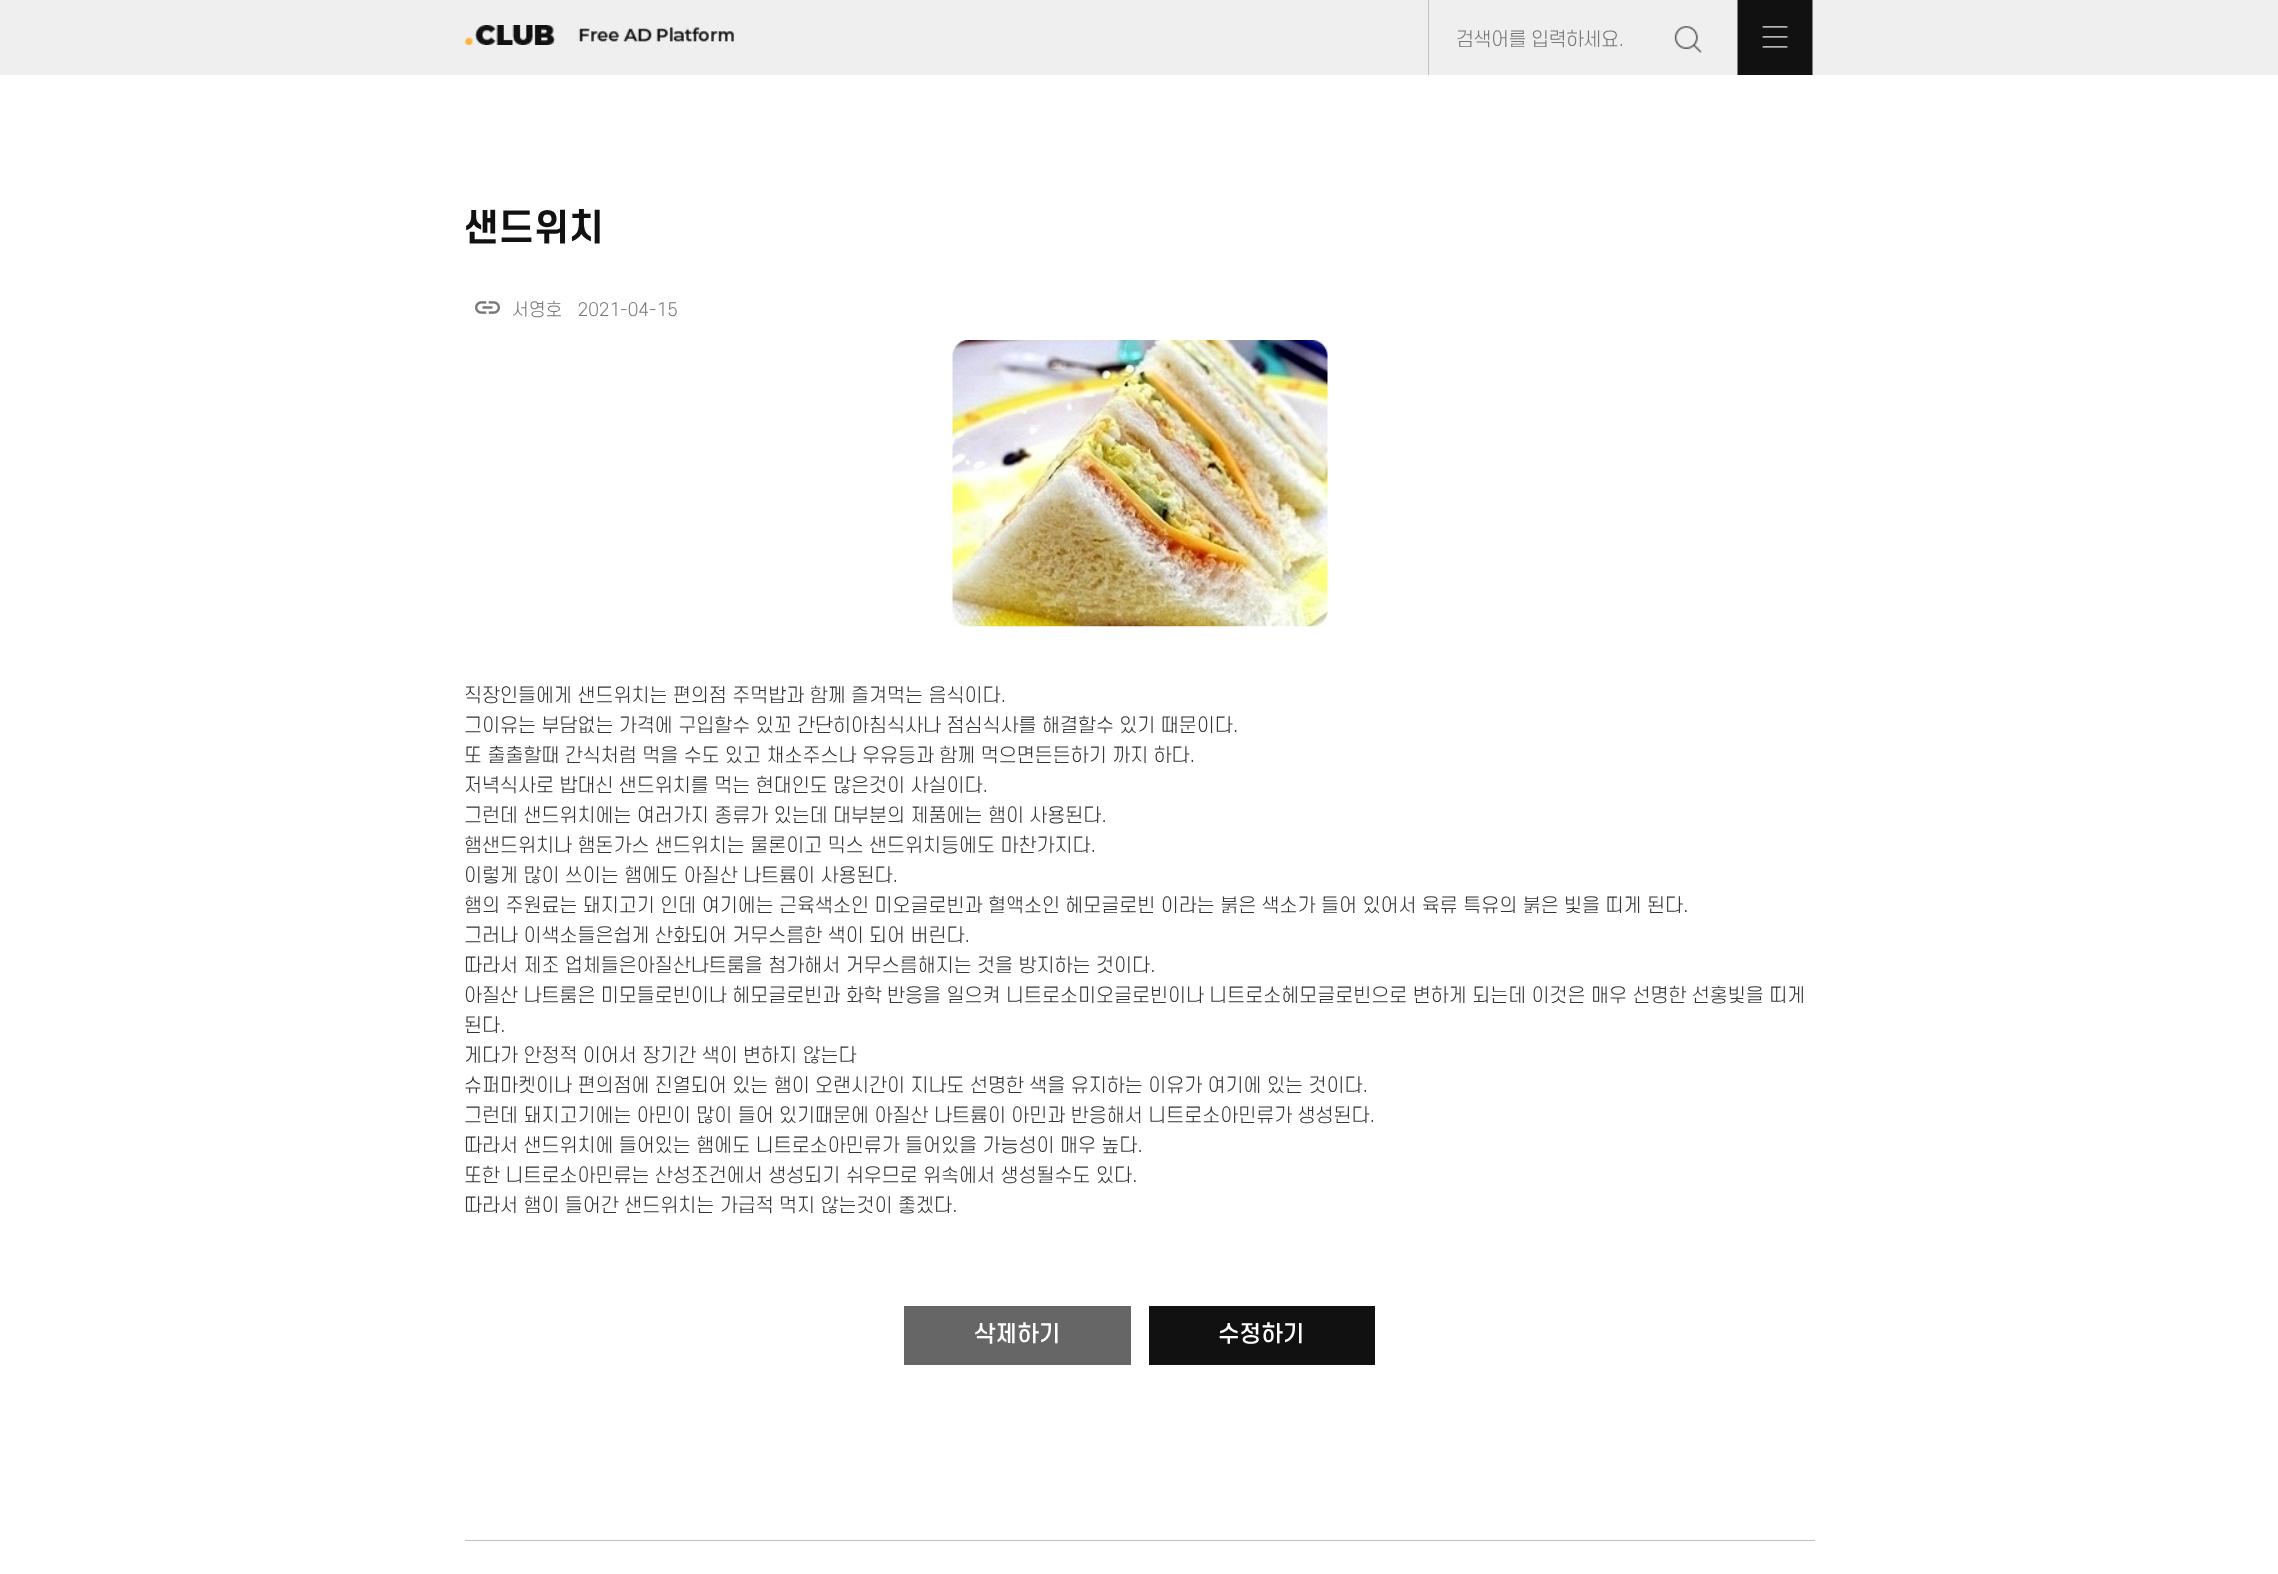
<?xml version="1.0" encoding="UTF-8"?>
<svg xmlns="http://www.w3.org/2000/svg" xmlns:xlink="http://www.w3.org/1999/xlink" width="2278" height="1574">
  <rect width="100%" height="100%" fill="#ffffff" />
  <rect width="2278" height="75" fill="#efefef" />
  <image x="465" y="25" width="269" height="20" xlink:href="image1.png" />
  <rect x="1428" width="1" height="75" fill="#c0c0c0" />
  <image x="1674" y="26" width="28" height="27" xlink:href="image2.png" />
  <image x="1737" y="0" width="76" height="75" xlink:href="image3.png" />
  <image x="475" y="301" width="25" height="13" xlink:href="image4.png" />
  <image x="952" y="340" width="376" height="287" xlink:href="image5.png" />
  <rect x="904" y="1306" width="227" height="59" fill="#666666" />
  <rect x="1149" y="1306" width="226" height="59" fill="#111111" />
  <rect x="465" y="1540" width="1350" height="1" fill="#c0c0c0" />
  <text x="1456" y="46" style="font-family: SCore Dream; font-size: 18.75px; font-weight: 300; letter-spacing: -0.5px; fill: #777777">검색어를 입력하세요.</text>
  <text x="464" y="241" style="font-family: SCore Dream; font-size: 36.5px; font-weight: bold; fill: #111111">샌드위치</text>
  <text x="512" y="316" style="font-family: SCore Dream; font-size: 17.5px; font-weight: 300; fill: #777777" xml:space="preserve">서영호   2021-04-15</text>
  <text x="464" y="702" style="font-family: SCore Dream; font-size: 18.75px; font-weight: 300; fill: #333333">직장인들에게 샌드위치는 편의점 주먹밥과 함께 즐겨먹는 음식이다.</text>
  <text x="464" y="732" style="font-family: SCore Dream; font-size: 18.75px; font-weight: 300; fill: #333333">그이유는 부담없는 가격에 구입할수 있꼬 간단히아침식사나 점심식사를 해결할수 있기 때문이다.</text>
  <text x="464" y="762" style="font-family: SCore Dream; font-size: 18.75px; font-weight: 300; fill: #333333">또 출출할때 간식처럼 먹을 수도 있고 채소주스나 우유등과 함께 먹으면든든하기 까지 하다.</text>
  <text x="464" y="792" style="font-family: SCore Dream; font-size: 18.75px; font-weight: 300; fill: #333333">저녁식사로 밥대신 샌드위치를 먹는 현대인도 많은것이 사실이다.</text>
  <text x="464" y="822" style="font-family: SCore Dream; font-size: 18.75px; font-weight: 300; fill: #333333">그런데 샌드위치에는 여러가지 종류가 있는데 대부분의 제품에는 햄이 사용된다.</text>
  <text x="464" y="852" style="font-family: SCore Dream; font-size: 18.75px; font-weight: 300; fill: #333333">햄샌드위치나 햄돈가스 샌드위치는 물론이고 믹스 샌드위치등에도 마찬가지다.</text>
  <text x="464" y="882" style="font-family: SCore Dream; font-size: 18.75px; font-weight: 300; fill: #333333">이렇게 많이 쓰이는 햄에도 아질산 나트륨이 사용된다.</text>
  <text x="464" y="912" style="font-family: SCore Dream; font-size: 18.75px; font-weight: 300; fill: #333333">햄의 주원료는 돼지고기 인데 여기에는 근육색소인 미오글로빈과 혈액소인 헤모글로빈 이라는 붉은 색소가 들어 있어서 육류 특유의 붉은 빛을 띠게 된다.</text>
  <text x="464" y="942" style="font-family: SCore Dream; font-size: 18.75px; font-weight: 300; fill: #333333">그러나 이색소들은쉽게 산화되어 거무스름한 색이 되어 버린다.</text>
  <text x="464" y="972" style="font-family: SCore Dream; font-size: 18.75px; font-weight: 300; fill: #333333">따라서 제조 업체들은아질산나트룸을 첨가해서 거무스름해지는 것을 방지하는 것이다.</text>
  <text x="464" y="1002" style="font-family: SCore Dream; font-size: 18.75px; font-weight: 300; fill: #333333">아질산 나트룸은 미모들로빈이나 헤모글로빈과 화학 반응을 일으켜 니트로소미오글로빈이나 니트로소헤모글로빈으로 변하게 되는데 이것은 매우 선명한 선홍빛을 띠게</text>
  <text x="464" y="1032" style="font-family: SCore Dream; font-size: 18.75px; font-weight: 300; fill: #333333">된다.</text>
  <text x="464" y="1062" style="font-family: SCore Dream; font-size: 18.75px; font-weight: 300; fill: #333333">게다가 안정적 이어서 장기간 색이 변하지 않는다</text>
  <text x="464" y="1092" style="font-family: SCore Dream; font-size: 18.75px; font-weight: 300; fill: #333333">슈퍼마켓이나 편의점에 진열되어 있는 햄이 오랜시간이 지나도 선명한 색을 유지하는 이유가 여기에 있는 것이다.</text>
  <text x="464" y="1122" style="font-family: SCore Dream; font-size: 18.75px; font-weight: 300; fill: #333333">그런데 돼지고기에는 아민이 많이 들어 있기때문에 아질산 나트륨이 아민과 반응해서 니트로소아민류가 생성된다.</text>
  <text x="464" y="1152" style="font-family: SCore Dream; font-size: 18.75px; font-weight: 300; fill: #333333">따라서 샌드위치에 들어있는 햄에도 니트로소아민류가 들어있을 가능성이 매우 높다.</text>
  <text x="464" y="1182" style="font-family: SCore Dream; font-size: 18.75px; font-weight: 300; fill: #333333">또한 니트로소아민류는 산성조건에서 생성되기 쉬우므로 위속에서 생성될수도 있다.</text>
  <text x="464" y="1212" style="font-family: SCore Dream; font-size: 18.75px; font-weight: 300; fill: #333333">따라서 햄이 들어간 샌드위치는 가급적 먹지 않는것이 좋겠다.</text>
  <text x="974" y="1342" style="font-family: SCore Dream; font-size: 22.5px; font-weight: 500; fill: #ffffff">삭제하기</text>
  <text x="1218" y="1342" style="font-family: SCore Dream; font-size: 22.5px; font-weight: 500; fill: #ffffff">수정하기</text>
</svg>
